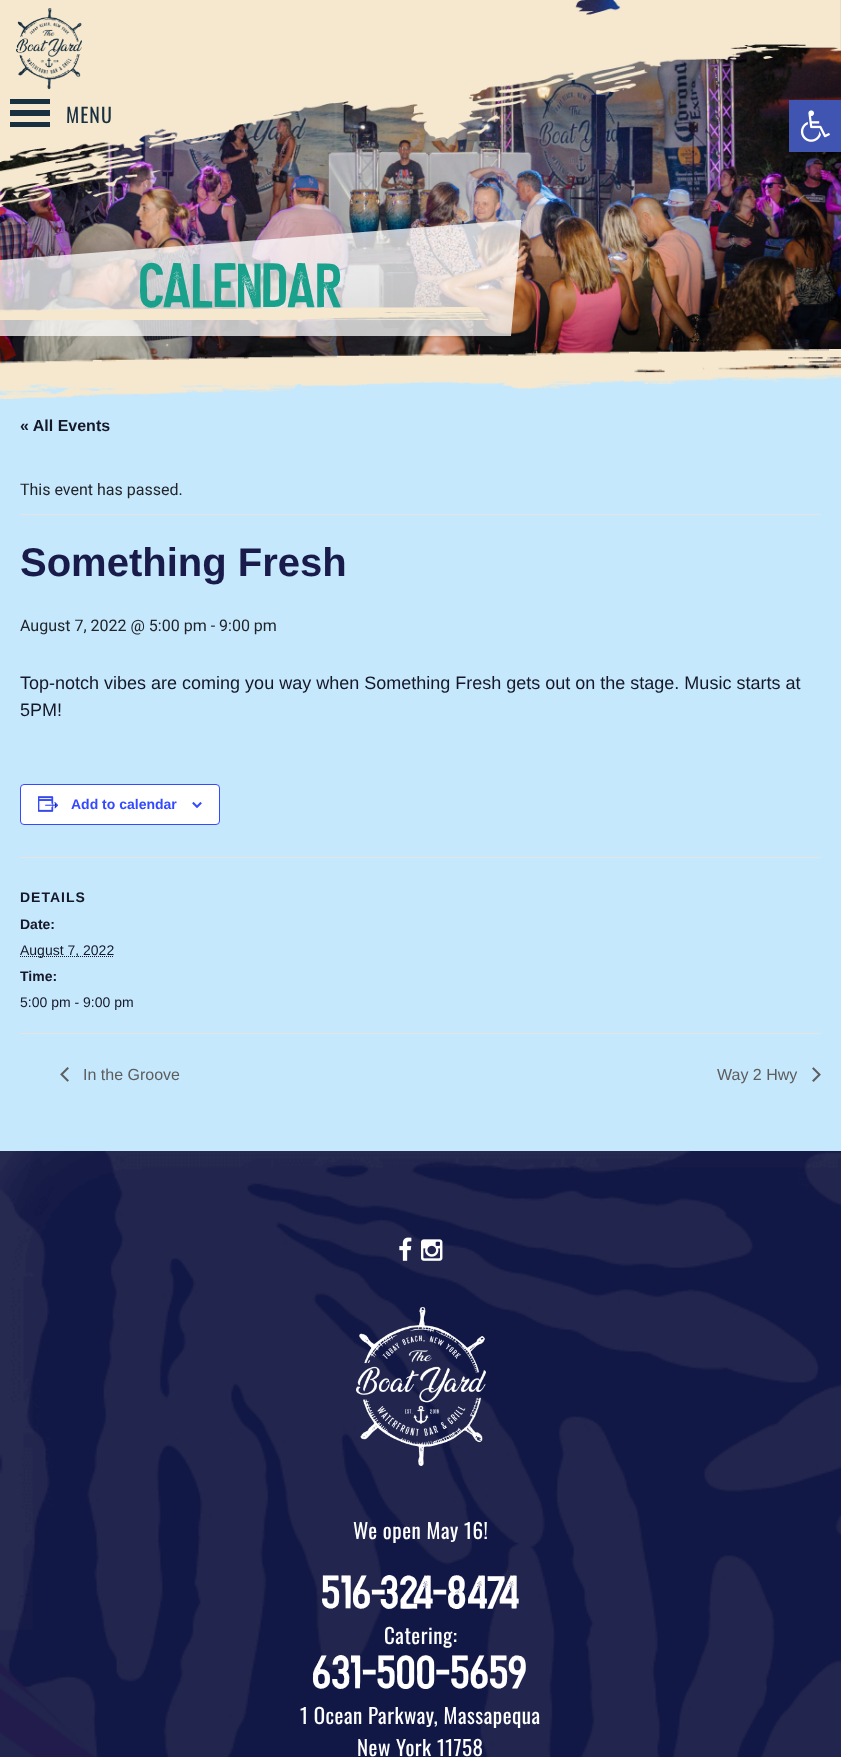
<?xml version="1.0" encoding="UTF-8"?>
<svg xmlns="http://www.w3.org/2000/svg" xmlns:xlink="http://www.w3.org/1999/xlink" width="841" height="1757">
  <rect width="100%" height="100%" fill="#c6e8fd" />
  <image x="0" y="0" width="841" height="374" xlink:href="image1.png" />
  <image x="0" y="0" width="841" height="207" xlink:href="image2.png" />
  <image x="16" y="8" width="66" height="82" xlink:href="image3.png" />
  <rect x="10" y="99" width="40" height="5" fill="#183040" />
  <rect x="10" y="110" width="40" height="6" fill="#183040" />
  <rect x="10" y="122" width="40" height="5" fill="#183040" />
  <rect x="789" y="100" width="52" height="52" fill="#4054b2" />
  <image x="800" y="110" width="30" height="32" xlink:href="image4.png" />
  <path d="M 0 260 v 76 h 511 l 10 -112 v -4 h -3 z" fill="#ffffff" fill-opacity="0.75" />
  <image x="0" y="349" width="841" height="50" xlink:href="image6.png" />
  <rect x="20" y="514" width="801" height="1" fill="#e4e4e4" />
  <rect x="20.5" y="784.5" width="199" height="40" rx="3.5" fill="#ffffff" stroke="#334aff" />
  <image x="38" y="796" width="21" height="16" xlink:href="image7.png" />
  <image x="192" y="802" width="10" height="6" xlink:href="image8.png" />
  <rect x="20" y="857" width="801" height="1" fill="#e4e4e4" />
  <path d="M 20 956.5 h 94" fill="none" stroke="#141827" stroke-dasharray="1 1" />
  <rect x="20" y="1033" width="801" height="1" fill="#e4e4e4" />
  <image x="60" y="1067" width="9" height="15" xlink:href="image9.png" />
  <image x="812" y="1067" width="9" height="15" xlink:href="image10.png" />
  <image x="0" y="1151" width="841" height="606" xlink:href="image11.png" />
  <image x="399" y="1237" width="13" height="24" xlink:href="image12.png" />
  <image x="421" y="1239" width="22" height="22" xlink:href="image13.png" />
  <image x="356" y="1307" width="130" height="159" xlink:href="image14.png" />
  <text x="66" y="123" style="font-family: Oswald; font-size: 20px; letter-spacing: 1px; fill: #183040">MENU</text>
  <text x="140" y="308" style="font-family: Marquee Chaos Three; font-size: 56px; fill: #19a18c">Calendar</text>
  <image x="0" y="307" width="489" height="13" xlink:href="image5.png" />
  <text x="20" y="431" style="font-family: Liberation Sans; font-size: 16px; font-weight: bold; fill: #141827">« All Events</text>
  <text x="20" y="495" style="font-family: Roboto; font-size: 16px; fill: #212529">This event has passed.</text>
  <text x="20" y="576" style="font-family: Liberation Sans; font-size: 40px; font-weight: bold; fill: #191c4b">Something Fresh</text>
  <text x="20" y="631" style="font-family: Roboto; font-size: 16px; fill: #212529">August 7, 2022 @ 5:00 pm - 9:00 pm</text>
  <text x="20" y="689" style="font-family: Liberation Sans; font-size: 18px; fill: #141827">Top-notch vibes are coming you way when Something Fresh gets out on the stage. Music starts at</text>
  <text x="20" y="716" style="font-family: Liberation Sans; font-size: 18px; fill: #141827">5PM!</text>
  <text x="71" y="809" style="font-family: Liberation Sans; font-size: 14px; font-weight: bold; fill: #334aff">Add to calendar</text>
  <text x="20" y="902" style="font-family: Liberation Sans; font-size: 14px; font-weight: bold; letter-spacing: 1px; fill: #141827">DETAILS</text>
  <text x="20" y="929" style="font-family: Liberation Sans; font-size: 14px; font-weight: bold; fill: #141827">Date:</text>
  <text x="20" y="955" style="font-family: Liberation Sans; font-size: 14px; fill: #141827">August 7, 2022</text>
  <text x="20" y="981" style="font-family: Liberation Sans; font-size: 14px; font-weight: bold; fill: #141827">Time:</text>
  <text x="20" y="1007" style="font-family: Liberation Sans; font-size: 14px; fill: #141827">5:00 pm - 9:00 pm</text>
  <text x="83" y="1080" style="font-family: Liberation Sans; font-size: 16px; fill: #5d5d5d">In the Groove</text>
  <text x="717" y="1080" style="font-family: Liberation Sans; font-size: 16px; fill: #5d5d5d">Way 2 Hwy</text>
  <text x="353" y="1539" style="font-family: Oswald; font-size: 21px; letter-spacing: 0.5px; fill: #ffffff">We open May 16!</text>
  <text x="322" y="1609" style="font-family: Marquee Chaos Three; font-size: 42px; letter-spacing: 0.5px; fill: #ffffff">516-324-8474</text>
  <text x="384" y="1644" style="font-family: Oswald; font-size: 21px; letter-spacing: 0.5px; fill: #ffffff">Catering:</text>
  <text x="313" y="1689" style="font-family: Marquee Chaos Three; font-size: 42px; letter-spacing: 0.5px; fill: #ffffff">631-500-5659</text>
  <text x="300" y="1724" style="font-family: Oswald; font-size: 21px; letter-spacing: 0.5px; fill: #ffffff">1 Ocean Parkway, Massapequa</text>
  <text x="357" y="1756" style="font-family: Oswald; font-size: 21px; letter-spacing: 0.5px; fill: #ffffff">New York 11758</text>
</svg>
